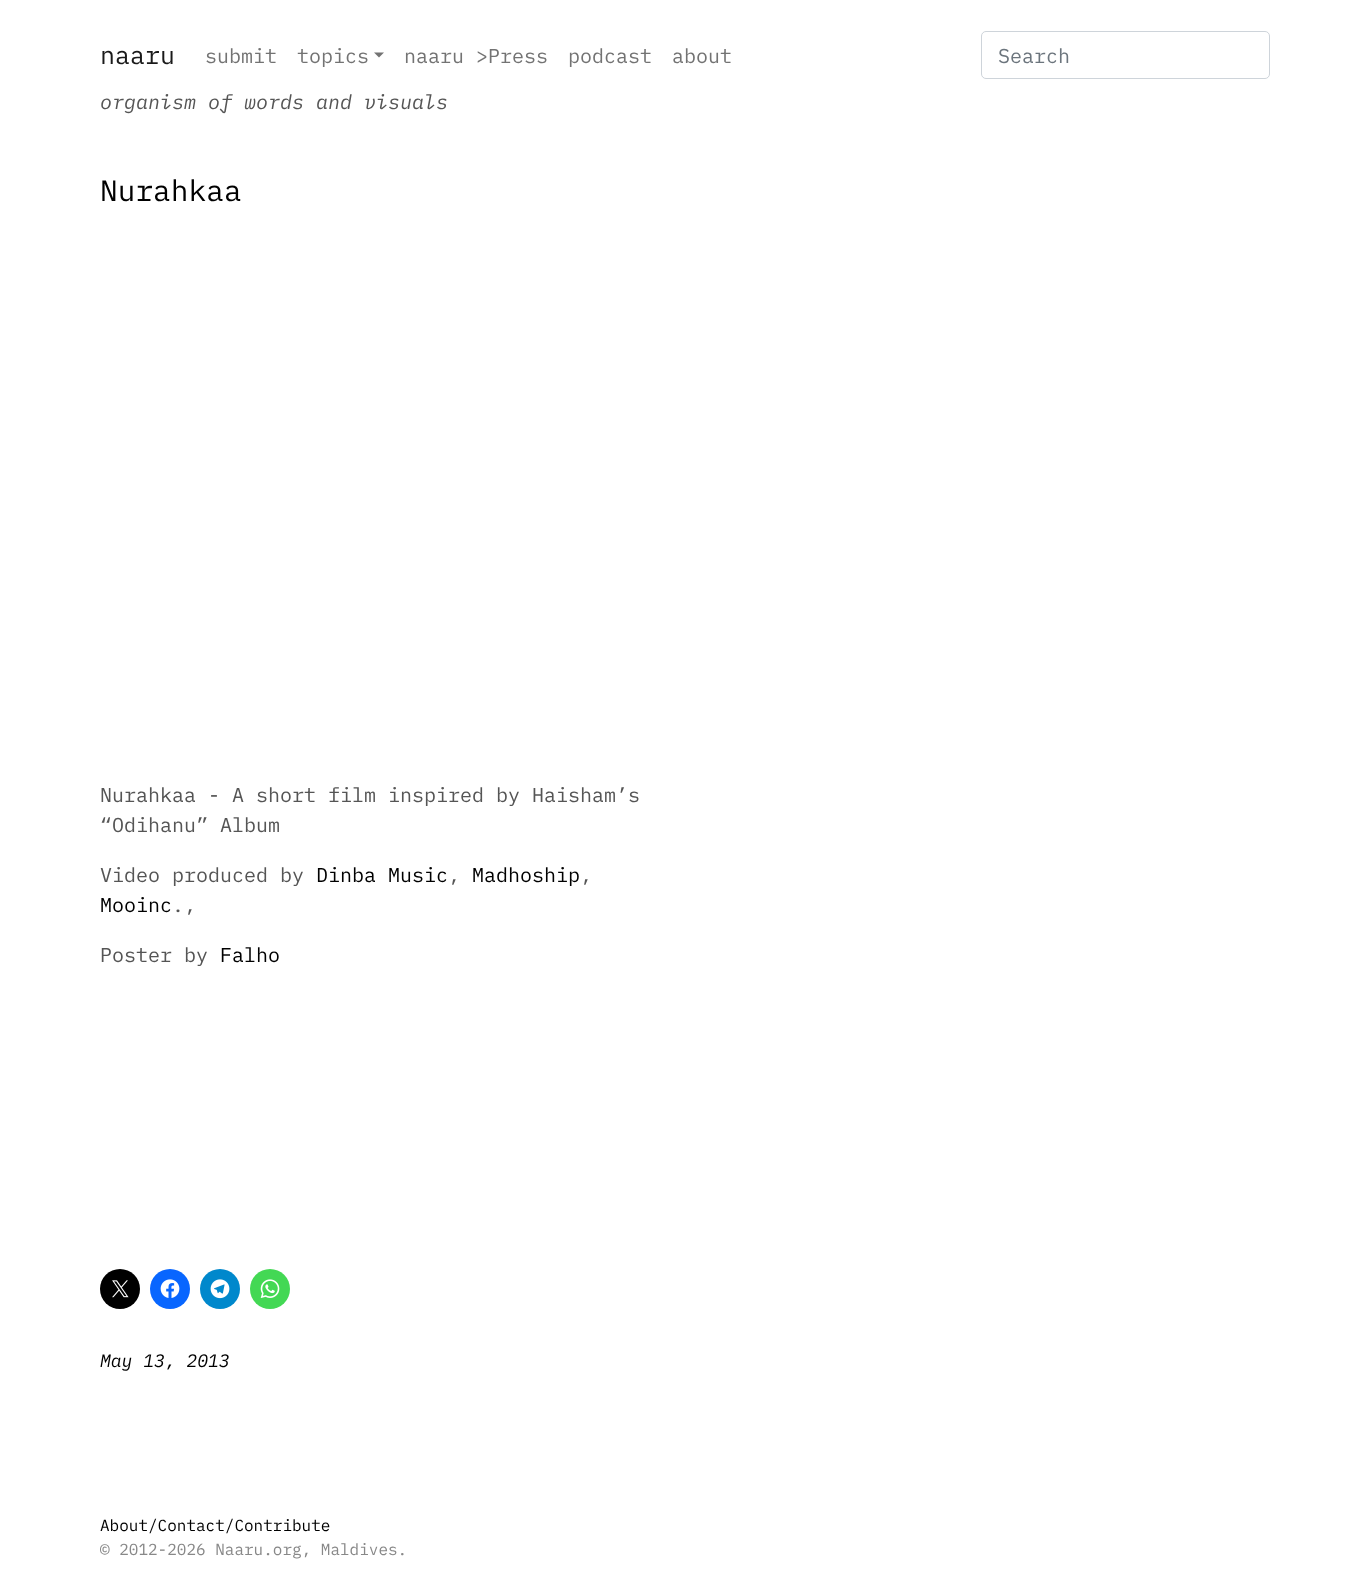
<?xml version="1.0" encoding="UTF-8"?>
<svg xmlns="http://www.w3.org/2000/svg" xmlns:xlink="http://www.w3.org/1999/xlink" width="1370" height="1575">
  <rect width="100%" height="100%" fill="#ffffff" />
  <path d="M 374 52.5 h 10 l -5 5 z" fill="#737373" />
  <rect x="981.5" y="31.5" width="288" height="47" rx="4.5" fill="none" stroke="#ced4da" />
  <circle cx="120" cy="1289" r="20" fill="#000000" />
  <image x="112" y="1280" width="17" height="18" xlink:href="image1.png" />
  <circle cx="170" cy="1289" r="20" fill="#0866ff" />
  <image x="160" y="1279" width="20" height="19" xlink:href="image2.png" />
  <circle cx="220" cy="1289" r="20" fill="#0088cc" />
  <image x="210" y="1279" width="20" height="20" xlink:href="image3.png" />
  <circle cx="270" cy="1289" r="20" fill="#43d854" />
  <image x="260" y="1279" width="20" height="19" xlink:href="image4.png" />
  <text x="100" y="64" style="font-family: IBM Plex Mono; font-size: 25px; fill: #1a1a1a">naaru</text>
  <text x="205" y="63" style="font-family: IBM Plex Mono; font-size: 20px; fill: #737373">submit</text>
  <text x="297" y="63" style="font-family: IBM Plex Mono; font-size: 20px; fill: #737373">topics</text>
  <text x="404" y="63" style="font-family: IBM Plex Mono; font-size: 20px; fill: #737373">naaru &gt;Press</text>
  <text x="568" y="63" style="font-family: IBM Plex Mono; font-size: 20px; fill: #737373">podcast</text>
  <text x="672" y="63" style="font-family: IBM Plex Mono; font-size: 20px; fill: #737373">about</text>
  <text x="998" y="63" style="font-family: IBM Plex Mono; font-size: 20px; fill: #6c757d">Search</text>
  <text x="100" y="109" style="font-family: IBM Plex Mono; font-size: 20px; font-style: italic; fill: #555555">organism of words and visuals</text>
  <text x="100" y="201" style="font-family: IBM Plex Mono; font-size: 29.5px; fill: #000000">Nurahkaa</text>
  <text x="100" y="802" style="font-family: IBM Plex Mono; font-size: 20px; fill: #555555">Nurahkaa - A short film inspired by Haisham’s</text>
  <text x="100" y="832" style="font-family: IBM Plex Mono; font-size: 20px; fill: #555555">“Odihanu” Album</text>
  <text x="100" y="882" style="font-family: IBM Plex Mono; font-size: 20px; fill: #555555">Video produced by</text>
  <text x="316" y="882" style="font-family: IBM Plex Mono; font-size: 20px; fill: #000000">Dinba Music</text>
  <text x="448" y="882" style="font-family: IBM Plex Mono; font-size: 20px; fill: #555555">,</text>
  <text x="472" y="882" style="font-family: IBM Plex Mono; font-size: 20px; fill: #000000">Madhoship</text>
  <text x="580" y="882" style="font-family: IBM Plex Mono; font-size: 20px; fill: #555555">,</text>
  <text x="100" y="912" style="font-family: IBM Plex Mono; font-size: 20px; fill: #000000">Mooinc</text>
  <text x="172" y="912" style="font-family: IBM Plex Mono; font-size: 20px; fill: #555555">.,</text>
  <text x="100" y="962" style="font-family: IBM Plex Mono; font-size: 20px; fill: #555555">Poster by</text>
  <text x="220" y="962" style="font-family: IBM Plex Mono; font-size: 20px; fill: #000000">Falho</text>
  <text x="100" y="1367" style="font-family: IBM Plex Mono; font-size: 18px; font-style: italic; fill: #000000">May 13, 2013</text>
  <text x="100" y="1531" style="font-family: IBM Plex Mono; font-size: 16px; fill: #000000">About/Contact/Contribute</text>
  <text x="100" y="1555" style="font-family: IBM Plex Mono; font-size: 16px; fill: #888888">© 2012-2026 Naaru.org, Maldives.</text>
</svg>
